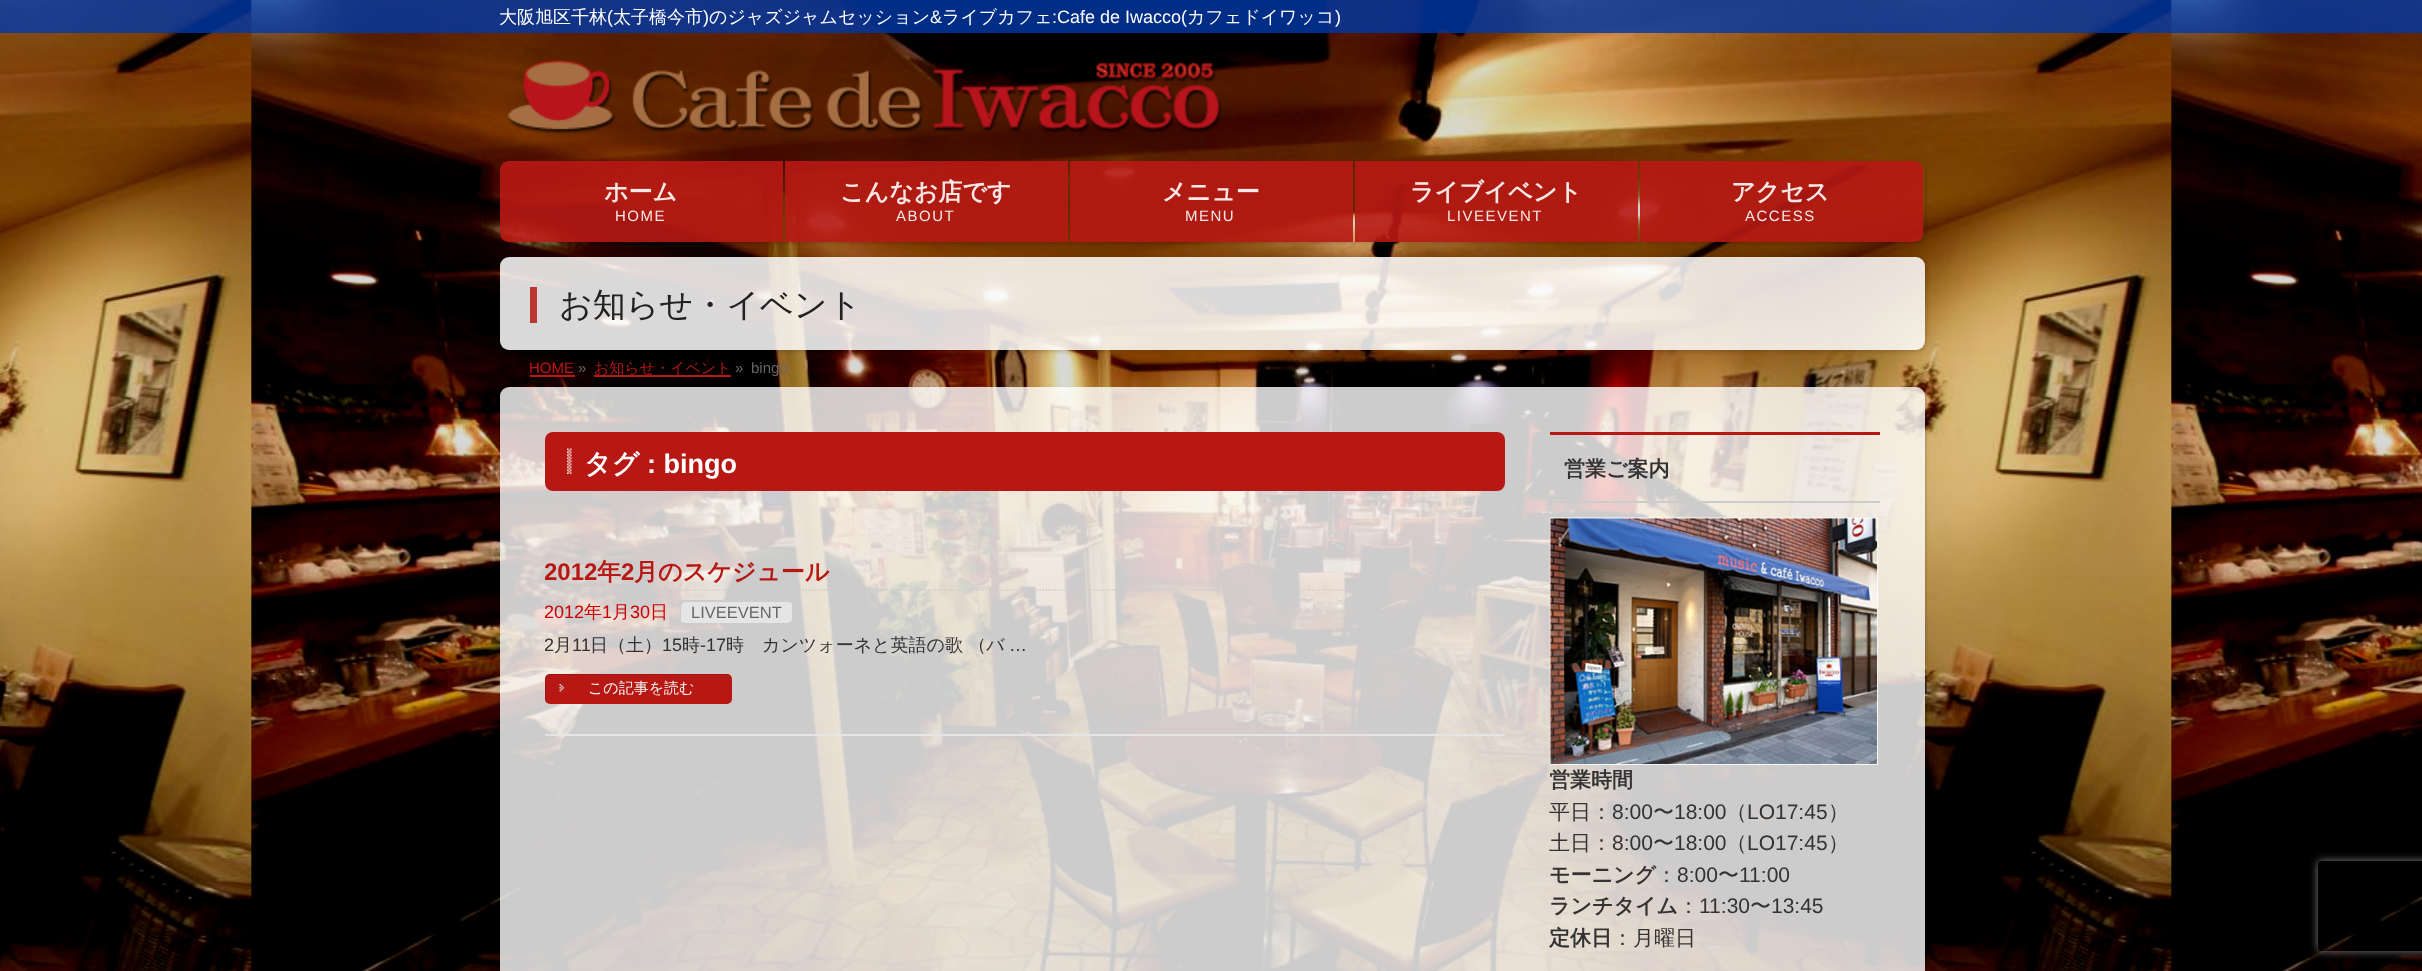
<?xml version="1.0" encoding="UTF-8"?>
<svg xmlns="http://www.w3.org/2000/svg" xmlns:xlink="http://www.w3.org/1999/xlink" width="2422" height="971">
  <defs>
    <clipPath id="clip1"><path d="M 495 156 h 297 v 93 h -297 z m 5 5 h 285 v 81 h -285 z" clip-rule="evenodd" /></clipPath>
    <clipPath id="clip2"><path d="M 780 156 h 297 v 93 h -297 z m 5 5 h 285 v 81 h -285 z" clip-rule="evenodd" /></clipPath>
    <clipPath id="clip3"><path d="M 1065 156 h 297 v 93 h -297 z m 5 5 h 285 v 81 h -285 z" clip-rule="evenodd" /></clipPath>
    <clipPath id="clip4"><path d="M 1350 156 h 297 v 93 h -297 z m 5 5 h 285 v 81 h -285 z" clip-rule="evenodd" /></clipPath>
    <clipPath id="clip5"><path d="M 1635 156 h 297 v 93 h -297 z m 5 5 h 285 v 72 c 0 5 -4 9 -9 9 h -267 c -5 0 -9 -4 -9 -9 z" clip-rule="evenodd" /></clipPath>
    <clipPath id="clip6"><path d="M 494 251 h 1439 v 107 h -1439 z m 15 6 h 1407 c 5 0 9 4 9 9 v 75 c 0 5 -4 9 -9 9 h -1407 c -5 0 -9 -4 -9 -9 v -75 c 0 -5 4 -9 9 -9 z" clip-rule="evenodd" /></clipPath>
    <clipPath id="clip7"><path d="M 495 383 h 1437 v 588 h -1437 z m 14 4 h 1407 c 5 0 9 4 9 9 v 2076 c 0 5 -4 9 -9 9 h -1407 c -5 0 -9 -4 -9 -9 v -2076 c 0 -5 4 -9 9 -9 z" clip-rule="evenodd" /></clipPath>
    <clipPath id="clip8"><path d="M 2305 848 h 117 v 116 h -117 z m 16 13 h 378 c 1.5 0 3 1.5 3 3 v 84 c 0 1.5 -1.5 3 -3 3 h -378 c -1.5 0 -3 -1.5 -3 -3 v -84 c 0 -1.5 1.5 -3 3 -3 z" clip-rule="evenodd" /></clipPath>
    <clipPath id="clip9"><rect x="545" y="558" width="960" height="146" /></clipPath>
    <clipPath id="clip10"><rect x="1550" y="432" width="330" height="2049" /></clipPath>
  </defs>
  <rect width="100%" height="100%" fill="#ffffff" />
  <image x="0" y="0" width="2422" height="971" xlink:href="image1.png" />
  <rect width="2422" height="33" fill="#0038a8" fill-opacity="0.8" />
  <image x="508" y="59" width="714" height="75" xlink:href="image2.png" />
  <g clip-path="url(#clip1)">
    <rect x="501" y="162" width="285" height="81" fill="#000000" fill-opacity="0.2" filter="blur(1.5px)" />
  </g>
  <path d="M 509 161 h 274 v 81 h -274 c -5 0 -9 -4 -9 -9 v -63 c 0 -5 4 -9 9 -9 z" fill="#b71813" fill-opacity="0.9" />
  <g clip-path="url(#clip2)">
    <rect x="786" y="162" width="285" height="81" fill="#000000" fill-opacity="0.2" filter="blur(1.5px)" />
  </g>
  <rect x="785" y="161" width="283" height="81" fill="#b71813" fill-opacity="0.9" />
  <g clip-path="url(#clip3)">
    <rect x="1071" y="162" width="285" height="81" fill="#000000" fill-opacity="0.2" filter="blur(1.5px)" />
  </g>
  <rect x="1070" y="161" width="283" height="81" fill="#b71813" fill-opacity="0.9" />
  <g clip-path="url(#clip4)">
    <rect x="1356" y="162" width="285" height="81" fill="#000000" fill-opacity="0.2" filter="blur(1.5px)" />
  </g>
  <rect x="1355" y="161" width="283" height="81" fill="#b71813" fill-opacity="0.9" />
  <g clip-path="url(#clip5)">
    <rect x="1641" y="162" width="285" height="81" rx="9" fill="#000000" fill-opacity="0.2" filter="blur(1.5px)" />
  </g>
  <path d="M 1640 161 h 274 c 5 0 9 4 9 9 v 63 c 0 5 -4 9 -9 9 h -274 z" fill="#b71813" fill-opacity="0.9" />
  <g clip-path="url(#clip6)">
    <rect x="501" y="258" width="1425" height="93" rx="9" fill="#000000" fill-opacity="0.2" filter="blur(2px)" />
  </g>
  <rect x="500" y="257" width="1425" height="93" rx="9" fill="#ffffff" fill-opacity="0.85" />
  <rect x="530" y="287" width="7" height="36" fill="#bc3531" />
  <rect x="530" y="375" width="45" height="2" fill="#b71813" />
  <rect x="594" y="375" width="137" height="2" fill="#b71813" />
  <g clip-path="url(#clip7)">
    <rect x="501" y="389" width="1425" height="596" rx="9" fill="#000000" fill-opacity="0.2" filter="blur(1.5px)" />
  </g>
  <rect x="500" y="387" width="1425" height="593" rx="9" fill="#ffffff" fill-opacity="0.8" />
  <rect x="545" y="432" width="960" height="59" rx="8" fill="#b71813" />
  <image x="567" y="448" width="5" height="26" xlink:href="image3.png" />
  <rect x="545" y="734" width="960" height="2" fill="#e5e5e5" />
  <path d="M 544.5 590 h 960" fill="none" stroke="#cccccc" stroke-width="1.5" stroke-dasharray="1.5 1.5" />
  <rect x="680" y="600" width="112" height="23" rx="5" fill="#e5e5e5" />
  <path d="M 686 602 h 103 l 2 1 c 0 -2 -2 -3 -4 -3 h -102 c -3 0 -5 2 -5 5 v 13 c 0 1 0 2 1 3 v -8 c 0 -4 -1 -11 5 -11 z" fill="#000000" fill-opacity="0.1" />
  <rect x="545" y="674" width="187" height="30" rx="5" fill="#b71813" />
  <image x="559" y="684" width="5" height="8" xlink:href="image4.png" />
  <path d="M 550 675 h 180 c -1 -1 -2 -1 -3 -1 h -177 c -3 0 -5 2 -5 5 v 20 c 0 1 1 3 2 4 c -2 -4 -1 -9 -1 -13 c 0 -3 -2 -15 4 -15 z" fill="#000000" fill-opacity="0.15" />
  <rect x="1550" y="432" width="330" height="3" fill="#b71813" />
  <rect x="1550" y="501" width="330" height="2" fill="#cccccc" />
  <image x="1549" y="517" width="329" height="248" xlink:href="image5.png" />
  <g clip-path="url(#clip8)">
    <rect x="2318" y="861" width="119" height="90" rx="3" fill="#808080" filter="blur(4px)" />
  </g>
  <text x="499" y="23" style="font-family: WenQuanYi Zen Hei; font-size: 18px; font-weight: 500; fill: #ffffff">大阪旭区千林</text>
  <text x="607" y="23" style="font-family: Liberation Sans; font-size: 18px; fill: #ffffff">(</text>
  <text x="613" y="23" style="font-family: WenQuanYi Zen Hei; font-size: 18px; font-weight: 500; fill: #ffffff">太子橋今市</text>
  <text x="703" y="23" style="font-family: Liberation Sans; font-size: 18px; fill: #ffffff">)</text>
  <text x="709" y="23" style="font-family: WenQuanYi Zen Hei; font-size: 18px; font-weight: 500; fill: #ffffff">のジャズジャムセッション</text>
  <text x="930" y="23" style="font-family: Liberation Sans; font-size: 18px; fill: #ffffff">&amp;</text>
  <text x="942" y="23" style="font-family: WenQuanYi Zen Hei; font-size: 18px; font-weight: 500; fill: #ffffff">ライブカフェ</text>
  <text x="1052" y="23" style="font-family: Liberation Sans; font-size: 18px; fill: #ffffff">:Cafe de Iwacco(</text>
  <text x="1187" y="23" style="font-family: WenQuanYi Zen Hei; font-size: 18px; font-weight: 500; fill: #ffffff">カフェドイワッコ</text>
  <text x="1335" y="23" style="font-family: Liberation Sans; font-size: 18px; fill: #ffffff">)</text>
  <text x="604" y="200" style="font-family: WenQuanYi Zen Hei; font-size: 24px; font-weight: bold; fill: #f7e8e7">ホーム</text>
  <text x="615" y="221" style="font-family: Liberation Sans; font-size: 15px; letter-spacing: 1.5px; fill: #f7e8e7">HOME</text>
  <text x="840" y="200" style="font-family: WenQuanYi Zen Hei; font-size: 24px; font-weight: bold; fill: #f7e8e7">こんなお店です</text>
  <text x="896" y="221" style="font-family: Liberation Sans; font-size: 15px; letter-spacing: 1.5px; fill: #f7e8e7">ABOUT</text>
  <text x="1162" y="200" style="font-family: WenQuanYi Zen Hei; font-size: 24px; font-weight: bold; fill: #f7e8e7">メニュー</text>
  <text x="1185" y="221" style="font-family: Liberation Sans; font-size: 15px; letter-spacing: 1.5px; fill: #f7e8e7">MENU</text>
  <text x="1410" y="200" style="font-family: WenQuanYi Zen Hei; font-size: 24px; font-weight: bold; fill: #f7e8e7">ライブイベント</text>
  <text x="1447" y="221" style="font-family: Liberation Sans; font-size: 15px; letter-spacing: 1.5px; fill: #f7e8e7">LIVEEVENT</text>
  <text x="1731" y="200" style="font-family: WenQuanYi Zen Hei; font-size: 24px; font-weight: bold; fill: #f7e8e7">アクセス</text>
  <text x="1745" y="221" style="font-family: Liberation Sans; font-size: 15px; letter-spacing: 1.5px; fill: #f7e8e7">ACCESS</text>
  <text x="559" y="316" style="font-family: WenQuanYi Zen Hei; font-size: 33px; font-weight: 500; fill: #212121">お知らせ・イベント</text>
  <text x="529" y="373" style="font-family: Liberation Sans; font-size: 15px; fill: #b71813">HOME</text>
  <text x="578" y="373" style="font-family: Liberation Sans; font-size: 15px; fill: #666666">»</text>
  <text x="594" y="373" style="font-family: WenQuanYi Zen Hei; font-size: 15px; font-weight: 500; fill: #b71813">お知らせ・イベント</text>
  <text x="735" y="373" style="font-family: Liberation Sans; font-size: 15px; fill: #666666">»</text>
  <text x="751" y="373" style="font-family: Liberation Sans; font-size: 15px; fill: #666666">bingo</text>
  <text x="584" y="473" style="font-family: WenQuanYi Zen Hei; font-size: 27px; font-weight: bold; fill: #ffffff">タグ</text>
  <text x="647" y="473" style="font-family: Liberation Sans; font-size: 27px; font-weight: bold; fill: #ffffff">: bingo</text>
  <g clip-path="url(#clip9)">
    <text x="544" y="580" style="font-family: Liberation Sans; font-size: 24px; font-weight: bold; fill: #b71813">2012</text>
  </g>
  <text x="597" y="580" style="font-family: WenQuanYi Zen Hei; font-size: 24px; font-weight: bold; fill: #b71813">年</text>
  <text x="621" y="580" style="font-family: Liberation Sans; font-size: 24px; font-weight: bold; fill: #b71813">2</text>
  <text x="634" y="580" style="font-family: WenQuanYi Zen Hei; font-size: 24px; font-weight: bold; fill: #b71813">月のスケジュール</text>
  <g clip-path="url(#clip9)">
    <text x="544" y="618" style="font-family: Liberation Sans; font-size: 18px; fill: #cc0000">2012</text>
  </g>
  <text x="584" y="618" style="font-family: WenQuanYi Zen Hei; font-size: 18px; font-weight: 500; fill: #cc0000">年</text>
  <text x="602" y="618" style="font-family: Liberation Sans; font-size: 18px; fill: #cc0000">1</text>
  <text x="612" y="618" style="font-family: WenQuanYi Zen Hei; font-size: 18px; font-weight: 500; fill: #cc0000">月</text>
  <text x="630" y="618" style="font-family: Liberation Sans; font-size: 18px; fill: #cc0000">30</text>
  <text x="650" y="618" style="font-family: WenQuanYi Zen Hei; font-size: 18px; font-weight: 500; fill: #cc0000">日</text>
  <text x="691" y="618" style="font-family: Liberation Sans; font-size: 16.5px; fill: #666666">LIVEEVENT</text>
  <g clip-path="url(#clip9)">
    <text x="544" y="651" style="font-family: Liberation Sans; font-size: 18px; fill: #333333">2</text>
  </g>
  <text x="554" y="651" style="font-family: WenQuanYi Zen Hei; font-size: 18px; font-weight: 500; fill: #333333">月</text>
  <text x="572" y="651" style="font-family: Liberation Sans; font-size: 18px; fill: #333333">11</text>
  <text x="590" y="651" style="font-family: WenQuanYi Zen Hei; font-size: 18px; font-weight: 500; fill: #333333">日（土）</text>
  <text x="662" y="651" style="font-family: Liberation Sans; font-size: 18px; fill: #333333">15</text>
  <text x="682" y="651" style="font-family: WenQuanYi Zen Hei; font-size: 18px; font-weight: 500; fill: #333333">時</text>
  <text x="700" y="651" style="font-family: Liberation Sans; font-size: 18px; fill: #333333">-17</text>
  <text x="726" y="651" style="font-family: WenQuanYi Zen Hei; font-size: 18px; font-weight: 500; fill: #333333">時　カンツォーネと英語の歌 （バ</text>
  <text x="1009" y="651" style="font-family: Liberation Sans; font-size: 18px; fill: #333333">…</text>
  <text x="588" y="693" style="font-family: WenQuanYi Zen Hei; font-size: 15px; font-weight: 500; fill: #f5f5f5">この記事を読む</text>
  <text x="1564" y="476" style="font-family: WenQuanYi Zen Hei; font-size: 21px; font-weight: bold; fill: #333333">営業ご案内</text>
  <g clip-path="url(#clip10)">
    <text x="1549" y="787" style="font-family: WenQuanYi Zen Hei; font-size: 21px; font-weight: bold; fill: #333333">営業時間</text>
  </g>
  <text x="1549" y="819" style="font-family: WenQuanYi Zen Hei; font-size: 21px; font-weight: 500; fill: #333333">平日：</text>
  <text x="1612" y="819" style="font-family: Liberation Sans; font-size: 21px; fill: #333333">8:00</text>
  <text x="1653" y="819" style="font-family: WenQuanYi Zen Hei; font-size: 21px; font-weight: 500; fill: #333333">〜</text>
  <text x="1674" y="819" style="font-family: Liberation Sans; font-size: 21px; fill: #333333">18:00</text>
  <text x="1726" y="819" style="font-family: WenQuanYi Zen Hei; font-size: 21px; font-weight: 500; fill: #333333">（</text>
  <text x="1747" y="819" style="font-family: Liberation Sans; font-size: 21px; fill: #333333">LO17:45</text>
  <text x="1828" y="819" style="font-family: WenQuanYi Zen Hei; font-size: 21px; font-weight: 500; fill: #333333">）</text>
  <text x="1549" y="850" style="font-family: WenQuanYi Zen Hei; font-size: 21px; font-weight: 500; fill: #333333">土日：</text>
  <text x="1612" y="850" style="font-family: Liberation Sans; font-size: 21px; fill: #333333">8:00</text>
  <text x="1653" y="850" style="font-family: WenQuanYi Zen Hei; font-size: 21px; font-weight: 500; fill: #333333">〜</text>
  <text x="1674" y="850" style="font-family: Liberation Sans; font-size: 21px; fill: #333333">18:00</text>
  <text x="1726" y="850" style="font-family: WenQuanYi Zen Hei; font-size: 21px; font-weight: 500; fill: #333333">（</text>
  <text x="1747" y="850" style="font-family: Liberation Sans; font-size: 21px; fill: #333333">LO17:45</text>
  <text x="1828" y="850" style="font-family: WenQuanYi Zen Hei; font-size: 21px; font-weight: 500; fill: #333333">）</text>
  <text x="1549" y="882" style="font-family: WenQuanYi Zen Hei; font-size: 21px; font-weight: bold; fill: #333333">モーニング</text>
  <text x="1656" y="882" style="font-family: WenQuanYi Zen Hei; font-size: 21px; font-weight: 500; fill: #333333">：</text>
  <text x="1677" y="882" style="font-family: Liberation Sans; font-size: 21px; fill: #333333">8:00</text>
  <text x="1718" y="882" style="font-family: WenQuanYi Zen Hei; font-size: 21px; font-weight: 500; fill: #333333">〜</text>
  <text x="1739" y="882" style="font-family: Liberation Sans; font-size: 21px; fill: #333333">11:00</text>
  <text x="1549" y="913" style="font-family: WenQuanYi Zen Hei; font-size: 21px; font-weight: bold; fill: #333333">ランチタイム</text>
  <text x="1678" y="913" style="font-family: WenQuanYi Zen Hei; font-size: 21px; font-weight: 500; fill: #333333">：</text>
  <text x="1699" y="913" style="font-family: Liberation Sans; font-size: 21px; fill: #333333">11:30</text>
  <text x="1750" y="913" style="font-family: WenQuanYi Zen Hei; font-size: 21px; font-weight: 500; fill: #333333">〜</text>
  <text x="1771" y="913" style="font-family: Liberation Sans; font-size: 21px; fill: #333333">13:45</text>
  <text x="1549" y="945" style="font-family: WenQuanYi Zen Hei; font-size: 21px; font-weight: bold; fill: #333333">定休日</text>
  <text x="1612" y="945" style="font-family: WenQuanYi Zen Hei; font-size: 21px; font-weight: 500; fill: #333333">：月曜日</text>
</svg>
